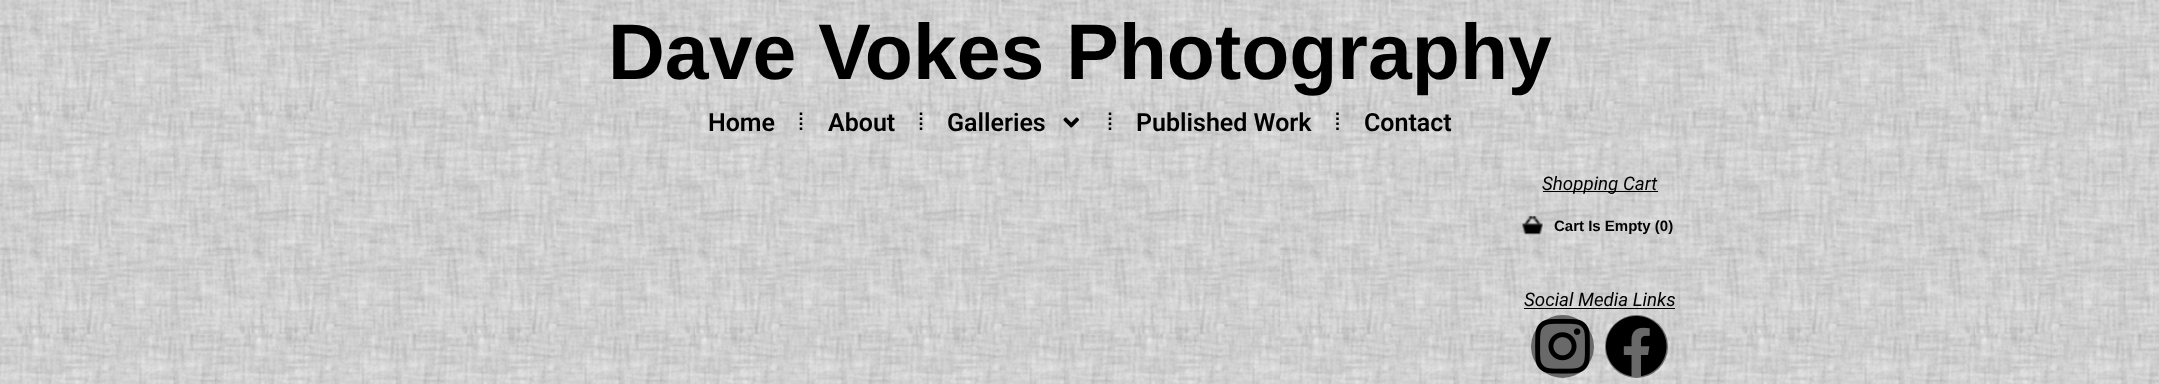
<?xml version="1.0" encoding="UTF-8"?>
<svg xmlns="http://www.w3.org/2000/svg" xmlns:xlink="http://www.w3.org/1999/xlink" width="2159" height="384">
  <rect width="100%" height="100%" fill="#ffffff" />
  <image x="0" y="0" width="2159" height="384" xlink:href="image1.png" />
  <path d="M 801 112.5 v 20" fill="none" stroke="#000000" stroke-width="2.5" stroke-dasharray="2.5 2.5" />
  <path d="M 921 112.5 v 20" fill="none" stroke="#000000" stroke-width="2.5" stroke-dasharray="2.5 2.5" />
  <image x="1063" y="117" width="16" height="11" xlink:href="image2.png" />
  <path d="M 1110 112.5 v 20" fill="none" stroke="#000000" stroke-width="2.5" stroke-dasharray="2.5 2.5" />
  <path d="M 1337.5 112.5 v 20" fill="none" stroke="#000000" stroke-width="2.5" stroke-dasharray="2.5 2.5" />
  <rect x="1543" y="191" width="115" height="1" fill="#000000" />
  <image x="1522" y="216" width="21" height="19" xlink:href="image3.png" />
  <rect x="1524" y="308" width="151" height="1" fill="#000000" />
  <circle cx="1562.5" cy="346.5" r="31.5" fill="#696969" />
  <image x="1535" y="318" width="55" height="56" xlink:href="image4.png" />
  <circle cx="1636.5" cy="346.5" r="31.5" fill="#696969" />
  <image x="1606" y="316" width="61" height="61" xlink:href="image5.png" />
  <text x="608" y="79" style="font-family: Liberation Sans; font-size: 78.75px; font-weight: bold; fill: #000000">Dave Vokes Photography</text>
  <text x="708" y="131" style="font-family: Roboto; font-size: 25px; font-weight: 600; fill: #000000">Home</text>
  <text x="828" y="131" style="font-family: Roboto; font-size: 25px; font-weight: 600; fill: #000000">About</text>
  <text x="947" y="131" style="font-family: Roboto; font-size: 25px; font-weight: 600; fill: #000000">Galleries</text>
  <text x="1136" y="131" style="font-family: Roboto; font-size: 25px; font-weight: 600; fill: #000000">Published Work</text>
  <text x="1364" y="131" style="font-family: Roboto; font-size: 25px; font-weight: 600; fill: #000000">Contact</text>
  <text x="1542" y="190" style="font-family: Roboto; font-size: 18.75px; font-style: italic; fill: #000000">Shopping Cart</text>
  <text x="1554" y="231" style="font-family: Liberation Sans; font-size: 15px; font-weight: bold; fill: #000000">Cart Is Empty (0)</text>
  <text x="1524" y="306" style="font-family: Roboto; font-size: 18.75px; font-style: italic; fill: #000000">Social Media Links</text>
</svg>
